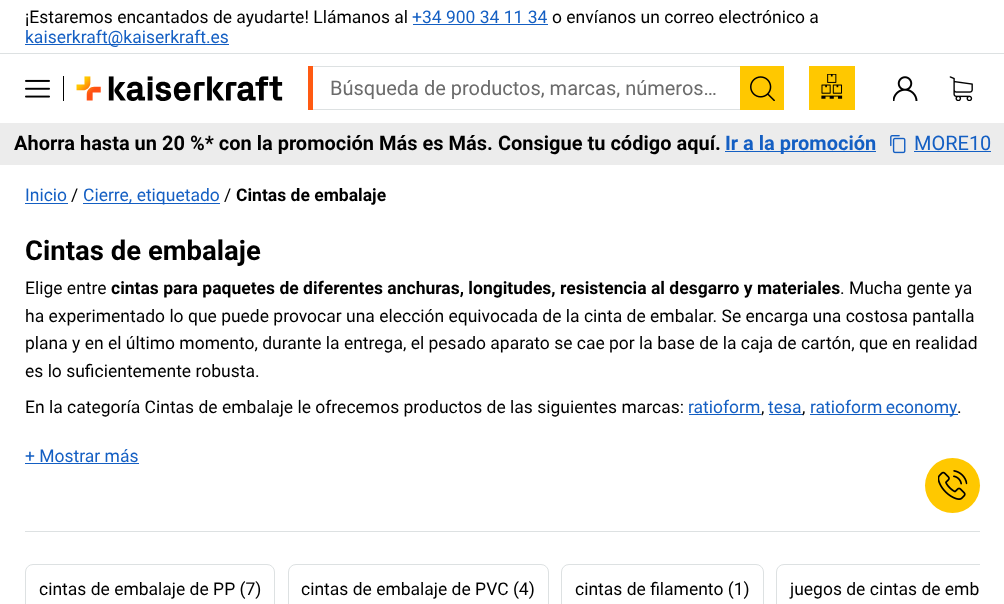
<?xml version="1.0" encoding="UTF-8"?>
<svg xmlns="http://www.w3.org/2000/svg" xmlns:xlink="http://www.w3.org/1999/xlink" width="1004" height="604">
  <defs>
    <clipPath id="clip1"><rect x="25" y="558" width="955" height="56" /></clipPath>
  </defs>
  <rect width="100%" height="100%" fill="#ffffff" />
  <rect y="53" width="1004" height="1" fill="#dde1e2" />
  <rect x="413" y="24" width="135" height="1" fill="#145fc3" />
  <rect x="25" y="44" width="204" height="1" fill="#145fc3" />
  <rect x="63" y="76" width="1" height="25" fill="#000000" />
  <image x="25" y="79" width="25" height="19" xlink:href="image1.png" />
  <image x="76" y="76" width="207" height="25" xlink:href="image2.png" />
  <rect x="308" y="66" width="432" height="1" fill="#dde1e2" />
  <rect x="308" y="109" width="432" height="1" fill="#dde1e2" />
  <rect x="308" y="66" width="5" height="44" fill="#ff5a12" />
  <rect x="740" y="66" width="44" height="44" fill="#ffc800" />
  <image x="750" y="76" width="25" height="25" xlink:href="image3.png" />
  <rect x="809" y="66" width="46" height="44" fill="#ffc800" />
  <image x="821" y="74" width="22" height="25" xlink:href="image4.png" />
  <image x="893" y="76" width="25" height="25" xlink:href="image5.png" />
  <image x="949" y="76" width="24" height="25" xlink:href="image6.png" />
  <rect y="123" width="1004" height="42" fill="#ececec" />
  <rect x="725" y="151" width="151" height="1" fill="#145fc3" />
  <image x="890" y="135" width="16" height="19" xlink:href="image7.png" />
  <rect x="914" y="151" width="77" height="1" fill="#145fc3" />
  <rect x="25" y="203" width="43" height="1" fill="#145fc3" />
  <rect x="83" y="203" width="137" height="1" fill="#145fc3" />
  <rect x="689" y="414" width="72" height="1" fill="#145fc3" />
  <rect x="769" y="414" width="34" height="1" fill="#145fc3" />
  <rect x="810" y="414" width="148" height="1" fill="#145fc3" />
  <rect x="25" y="463" width="114" height="1" fill="#145fc3" />
  <rect x="25" y="531" width="955" height="1" fill="#dde1e2" />
  <rect x="25.5" y="564.5" width="249" height="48" rx="7.5" fill="none" stroke="#dde1e2" />
  <rect x="288.5" y="564.5" width="260" height="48" rx="7.5" fill="none" stroke="#dde1e2" />
  <rect x="561.5" y="564.5" width="202" height="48" rx="7.5" fill="none" stroke="#dde1e2" />
  <g clip-path="url(#clip1)">
    <rect x="776.5" y="564.5" width="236" height="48" rx="7.5" fill="none" stroke="#dde1e2" />
  </g>
  <circle cx="952.5" cy="485.5" r="27.5" fill="#ffc800" />
  <image x="938" y="470" width="30" height="30" xlink:href="image8.png" />
  <text x="25" y="23" style="font-family: Roboto; font-size: 17.5px; fill: #000000">¡Estaremos encantados de ayudarte! Llámanos al</text>
  <text x="412" y="23" style="font-family: Roboto; font-size: 17.5px; fill: #145fc3">+34 900 34 11 34</text>
  <text x="552" y="23" style="font-family: Roboto; font-size: 17.5px; fill: #000000">o envíanos un correo electrónico a</text>
  <text x="25" y="43" style="font-family: Roboto; font-size: 17.5px; fill: #145fc3">kaiserkraft@kaiserkraft.es</text>
  <text x="330" y="95" style="font-family: Roboto; font-size: 20px; fill: #6b6b6b">Búsqueda de productos, marcas, números…</text>
  <text x="14" y="150" style="font-family: Roboto; font-size: 20px; font-weight: bold; fill: #000000">Ahorra hasta un 20 %* con la promoción Más es Más. Consigue tu código aquí.</text>
  <text x="725" y="150" style="font-family: Roboto; font-size: 20px; font-weight: bold; fill: #145fc3">Ir a la promoción</text>
  <text x="914" y="150" style="font-family: Roboto; font-size: 20px; fill: #145fc3">MORE10</text>
  <text x="25" y="201" style="font-family: Roboto; font-size: 17.5px; fill: #145fc3">Inicio</text>
  <text x="71" y="201" style="font-family: Roboto; font-size: 17.5px; fill: #000000">/</text>
  <text x="83" y="201" style="font-family: Roboto; font-size: 17.5px; fill: #145fc3">Cierre, etiquetado</text>
  <text x="224" y="201" style="font-family: Roboto; font-size: 17.5px; fill: #000000">/</text>
  <text x="236" y="201" style="font-family: Roboto; font-size: 17.5px; font-weight: bold; fill: #000000">Cintas de embalaje</text>
  <text x="25" y="260" style="font-family: Roboto; font-size: 27.5px; font-weight: bold; fill: #000000">Cintas de embalaje</text>
  <text x="25" y="294" style="font-family: Roboto; font-size: 17.5px; fill: #000000">Elige entre</text>
  <text x="111" y="294" style="font-family: Roboto; font-size: 17.5px; font-weight: bold; fill: #000000">cintas para paquetes de diferentes anchuras, longitudes, resistencia al desgarro y materiales</text>
  <text x="840" y="294" style="font-family: Roboto; font-size: 17.5px; fill: #000000">. Mucha gente ya</text>
  <text x="25" y="322" style="font-family: Roboto; font-size: 17.5px; fill: #000000">ha experimentado lo que puede provocar una elección equivocada de la cinta de embalar. Se encarga una costosa pantalla</text>
  <text x="25" y="349" style="font-family: Roboto; font-size: 17.5px; fill: #000000">plana y en el último momento, durante la entrega, el pesado aparato se cae por la base de la caja de cartón, que en realidad</text>
  <text x="25" y="377" style="font-family: Roboto; font-size: 17.5px; fill: #000000">es lo suficientemente robusta.</text>
  <text x="25" y="413" style="font-family: Roboto; font-size: 17.5px; fill: #000000">En la categoría Cintas de embalaje le ofrecemos productos de las siguientes marcas:</text>
  <text x="688" y="413" style="font-family: Roboto; font-size: 17.5px; fill: #145fc3">ratioform</text>
  <text x="761" y="413" style="font-family: Roboto; font-size: 17.5px; fill: #000000">,</text>
  <text x="768" y="413" style="font-family: Roboto; font-size: 17.5px; fill: #145fc3">tesa</text>
  <text x="802" y="413" style="font-family: Roboto; font-size: 17.5px; fill: #000000">,</text>
  <text x="810" y="413" word-spacing="-1" style="font-family: Roboto; font-size: 17.5px; fill: #145fc3">ratioform economy</text>
  <text x="957" y="413" style="font-family: Roboto; font-size: 17.5px; fill: #000000">.</text>
  <text x="25" y="462" style="font-family: Roboto; font-size: 17.5px; fill: #145fc3">+ Mostrar más</text>
  <text x="39" y="595" style="font-family: Roboto; font-size: 17.5px; fill: #000000">cintas de embalaje de PP (7)</text>
  <text x="301" y="595" style="font-family: Roboto; font-size: 17.5px; fill: #000000">cintas de embalaje de PVC (4)</text>
  <text x="575" y="595" style="font-family: Roboto; font-size: 17.5px; fill: #000000">cintas de filamento (1)</text>
  <text x="790" y="595" style="font-family: Roboto; font-size: 17.5px; fill: #000000">juegos de cintas de emb</text>
</svg>
